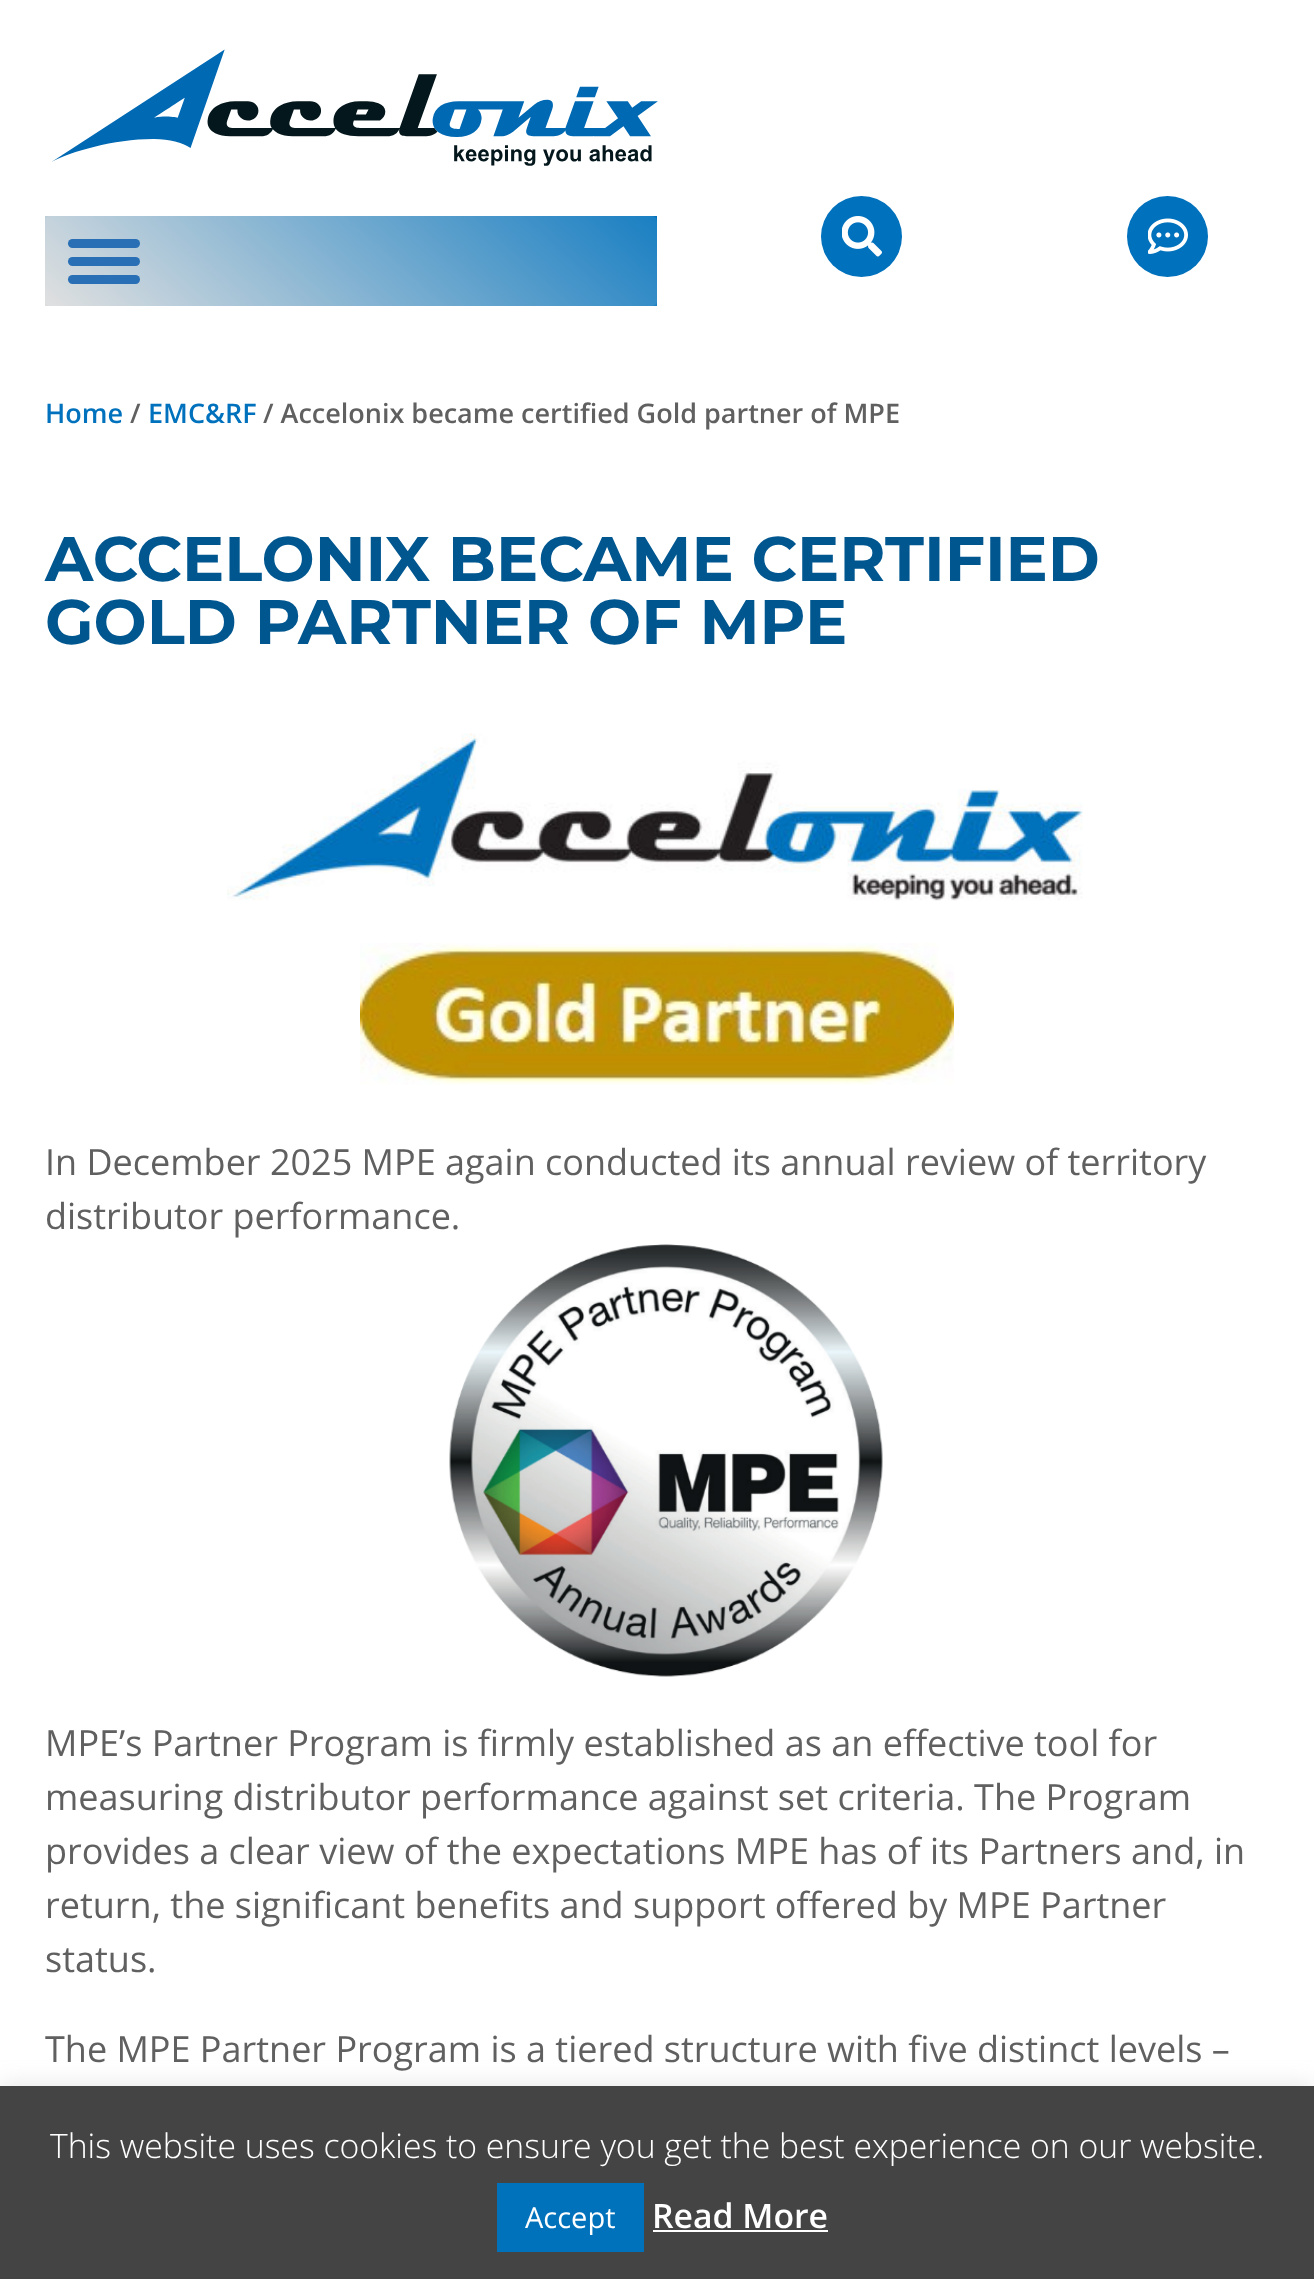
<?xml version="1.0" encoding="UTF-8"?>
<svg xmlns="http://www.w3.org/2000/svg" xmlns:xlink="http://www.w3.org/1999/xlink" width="1314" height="2279">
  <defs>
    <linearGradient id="g1" gradientUnits="userSpaceOnUse" x1="510" y1="84" x2="192" y2="438"><stop offset="0" stop-color="#0071bc" /><stop offset="1" stop-color="#dddddd" /></linearGradient>
  </defs>
  <rect width="100%" height="100%" fill="#ffffff" />
  <image x="52" y="49" width="606" height="117" xlink:href="image1.png" />
  <rect x="45" y="216" width="612" height="90" fill="url(#g1)" />
  <rect x="45" y="216" width="612" height="90" rx="5" fill="#ffffff" fill-opacity="0.1" />
  <rect x="68" y="239" width="72" height="9" rx="4.5" fill="#286fb5" />
  <rect x="68" y="257" width="72" height="9" rx="4.5" fill="#286fb5" />
  <rect x="68" y="275" width="72" height="9" rx="4.5" fill="#286fb5" />
  <circle cx="861.5" cy="236.5" r="40.5" fill="#0071bc" />
  <image x="842" y="216" width="40" height="41" xlink:href="image2.png" />
  <circle cx="1167.5" cy="236.5" r="40.5" fill="#0071bc" />
  <image x="1148" y="218" width="40" height="36" xlink:href="image3.png" />
  <image x="227" y="733" width="856" height="168" xlink:href="image4.png" />
  <image x="360" y="943" width="594" height="142" xlink:href="image5.png" />
  <image x="449" y="1244" width="434" height="433" xlink:href="image6.png" />
  <rect y="2084" width="1314" height="193" fill="#acabab" fill-opacity="0.3" filter="blur(11px)" />
  <rect y="2086" width="1314" height="193" fill="#444444" />
  <rect x="497" y="2183" width="147" height="69" fill="#0072bc" />
  <rect x="653" y="2230" width="175" height="2" fill="#ffffff" />
  <text x="45" y="423" style="font-family: Open Sans; font-size: 27px; font-weight: 600; fill: #0071bc">Home</text>
  <text x="130" y="423" style="font-family: Open Sans; font-size: 27px; font-weight: 600; fill: #606060">/</text>
  <text x="148" y="423" style="font-family: Open Sans; font-size: 27px; font-weight: 600; fill: #0071bc">EMC&amp;RF</text>
  <text x="263" y="423" style="font-family: Open Sans; font-size: 27px; font-weight: 600; fill: #606060">/ Accelonix became certified Gold partner of MPE</text>
  <text x="45" y="581" style="font-family: Montserrat; font-size: 63px; font-weight: bold; fill: #005790">ACCELONIX BECAME CERTIFIED</text>
  <text x="45" y="644" style="font-family: Montserrat; font-size: 63px; font-weight: bold; fill: #005790">GOLD PARTNER OF MPE</text>
  <text x="45" y="1175" style="font-family: Open Sans; font-size: 36px; fill: #606060">In December 2025 MPE again conducted its annual review of territory</text>
  <text x="45" y="1229" style="font-family: Open Sans; font-size: 36px; fill: #606060">distributor performance.</text>
  <text x="45" y="1756" style="font-family: Open Sans; font-size: 36px; fill: #606060">MPE’s Partner Program is firmly established as an effective tool for</text>
  <text x="45" y="1810" style="font-family: Open Sans; font-size: 36px; fill: #606060">measuring distributor performance against set criteria. The Program</text>
  <text x="45" y="1864" style="font-family: Open Sans; font-size: 36px; fill: #606060">provides a clear view of the expectations MPE has of its Partners and, in</text>
  <text x="45" y="1918" style="font-family: Open Sans; font-size: 36px; fill: #606060">return, the significant benefits and support offered by MPE Partner</text>
  <text x="45" y="1972" style="font-family: Open Sans; font-size: 36px; fill: #606060">status.</text>
  <text x="45" y="2062" style="font-family: Open Sans; font-size: 36px; fill: #606060">The MPE Partner Program is a tiered structure with five distinct levels –</text>
  <text x="50" y="2158" style="font-family: Open Sans; font-size: 33.75px; font-weight: 300; fill: #ffffff">This website uses cookies to ensure you get the best experience on our website.</text>
  <text x="525" y="2228" style="font-family: Open Sans; font-size: 29px; fill: #ffffff">Accept</text>
  <text x="652" y="2228" style="font-family: Open Sans; font-size: 33.75px; font-weight: 600; fill: #ffffff">Read More</text>
</svg>
